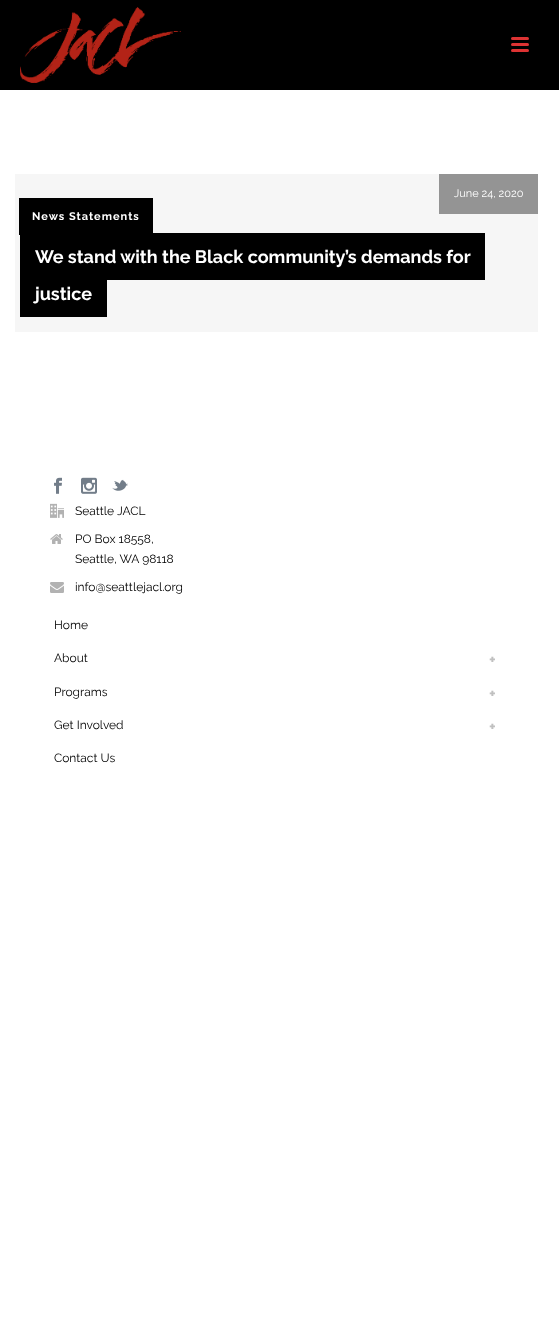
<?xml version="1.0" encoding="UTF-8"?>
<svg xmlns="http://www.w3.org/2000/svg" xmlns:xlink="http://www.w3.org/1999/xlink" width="559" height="1332">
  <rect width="100%" height="100%" fill="#ffffff" />
  <rect width="559" height="90" fill="#000000" />
  <image x="20" y="7" width="161" height="76" xlink:href="image1.png" />
  <rect x="511" y="37" width="18" height="3" rx="1.5" fill="#dd3333" />
  <rect x="511" y="43" width="18" height="3" rx="1.5" fill="#dd3333" />
  <rect x="511" y="49" width="18" height="3" rx="1.5" fill="#dd3333" />
  <rect x="15" y="174" width="523" height="158" fill="#f6f6f6" />
  <rect x="439" y="174" width="99" height="40" fill="#949494" />
  <rect x="19" y="198" width="8" height="37" fill="#000000" />
  <rect x="65" y="198" width="4" height="37" fill="#000000" />
  <rect x="27" y="198" width="38" height="35" fill="#000000" />
  <rect x="145" y="198" width="8" height="37" fill="#000000" />
  <rect x="69" y="198" width="76" height="35" fill="#000000" />
  <rect x="20" y="233" width="15" height="84" fill="#000000" />
  <rect x="35" y="233" width="450" height="47" fill="#000000" />
  <rect x="35" y="280" width="72" height="37" fill="#000000" />
  <image x="54" y="477" width="8" height="17" xlink:href="image2.png" />
  <image x="81" y="477" width="16" height="17" xlink:href="image3.png" />
  <image x="112" y="479" width="16" height="12" xlink:href="image4.png" />
  <image x="50" y="503" width="14" height="15" xlink:href="image5.png" />
  <image x="50" y="534" width="13" height="10" xlink:href="image6.png" />
  <image x="50" y="582" width="14" height="11" xlink:href="image7.png" />
  <text x="454" y="197" style="font-family: Raleway; font-size: 11px; fill: #ffffff">June 24, 2020</text>
  <text x="32" y="220" style="font-family: Raleway; font-size: 11px; font-weight: bold; letter-spacing: 1px; fill: #ffffff">News Statements</text>
  <text x="35" y="263" style="font-family: Raleway; font-size: 18px; font-weight: bold; fill: #ffffff">We stand with the Black community’s demands for</text>
  <text x="35" y="300" style="font-family: Raleway; font-size: 18px; font-weight: bold; fill: #ffffff">justice</text>
  <text x="75" y="515" style="font-family: Raleway; font-size: 12px; fill: #000000">Seattle JACL</text>
  <text x="75" y="543" style="font-family: Raleway; font-size: 12px; fill: #000000">PO Box 18558,</text>
  <text x="75" y="563" style="font-family: Raleway; font-size: 12px; fill: #000000">Seattle, WA 98118</text>
  <text x="75" y="591" style="font-family: Raleway; font-size: 12px; fill: #000000">info@seattlejacl.org</text>
  <text x="54" y="629" style="font-family: Raleway; font-size: 12px; fill: #000000">Home</text>
  <text x="54" y="662" style="font-family: Raleway; font-size: 12px; fill: #000000">About</text>
  <text x="489" y="665" style="font-family: Raleway; font-size: 16px; font-weight: bold; fill: #c0c0c0">+</text>
  <text x="54" y="696" style="font-family: Raleway; font-size: 12px; fill: #000000">Programs</text>
  <text x="489" y="699" style="font-family: Raleway; font-size: 16px; font-weight: bold; fill: #c0c0c0">+</text>
  <text x="54" y="729" style="font-family: Raleway; font-size: 12px; fill: #000000">Get Involved</text>
  <text x="489" y="732" style="font-family: Raleway; font-size: 16px; font-weight: bold; fill: #c0c0c0">+</text>
  <text x="54" y="762" style="font-family: Raleway; font-size: 12px; fill: #000000">Contact Us</text>
</svg>
